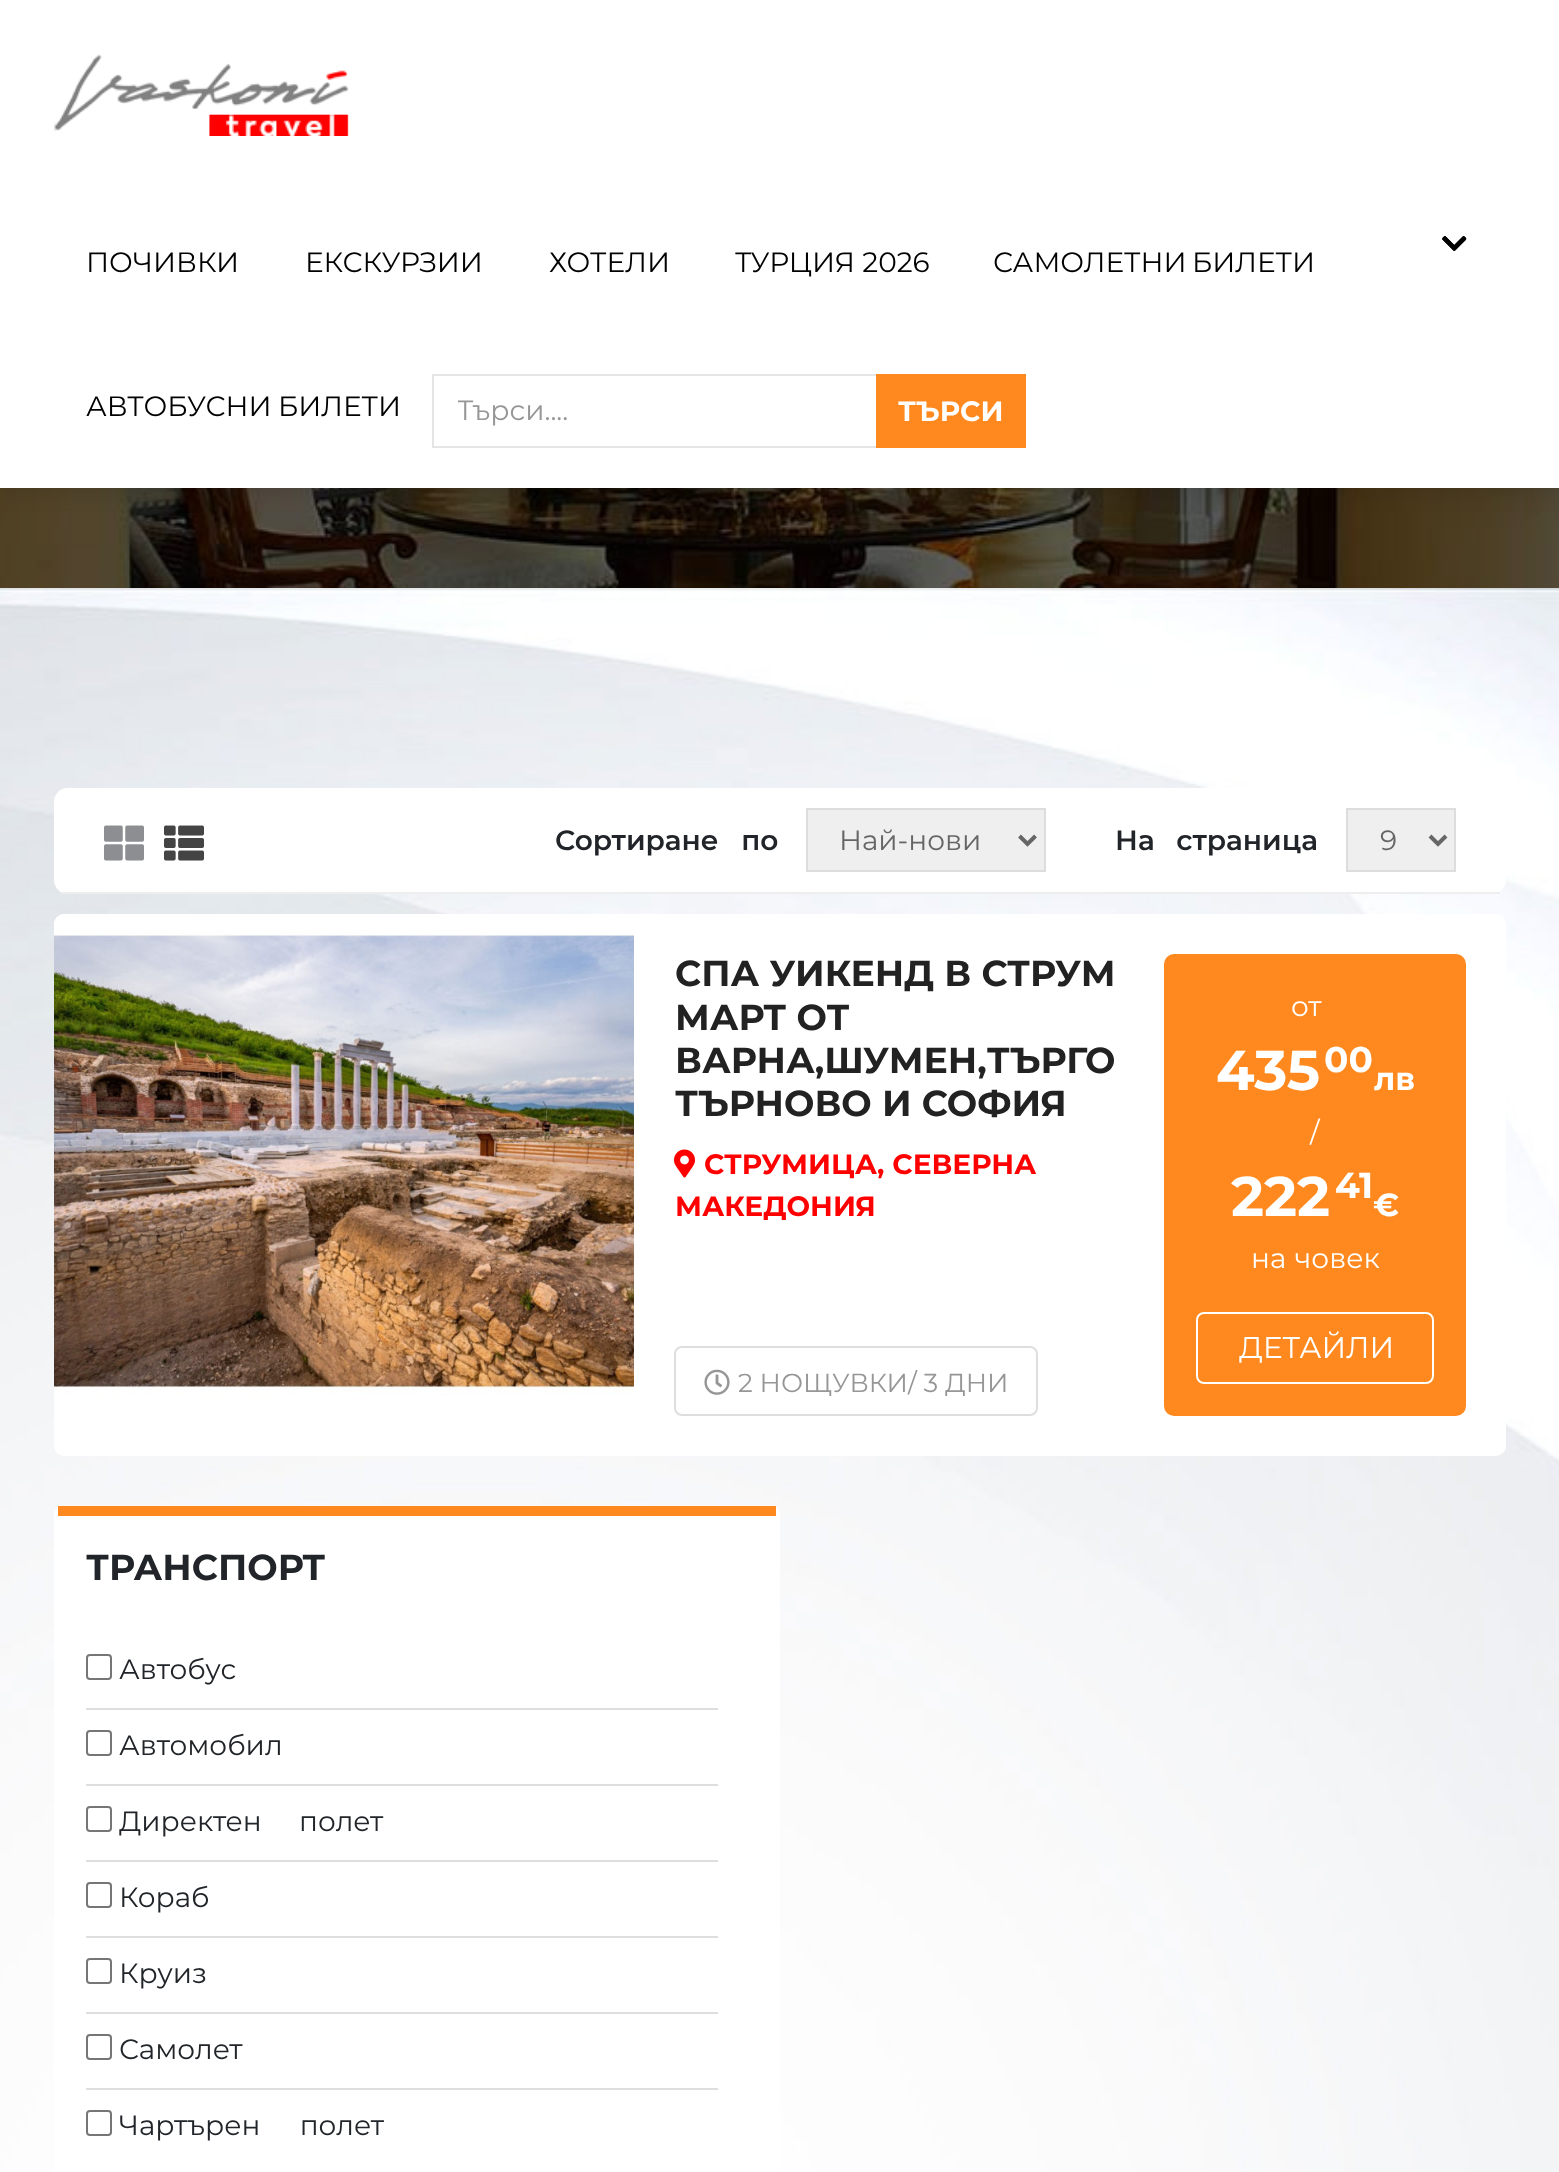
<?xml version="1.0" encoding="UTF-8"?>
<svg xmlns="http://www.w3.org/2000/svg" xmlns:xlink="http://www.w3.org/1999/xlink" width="1559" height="2172">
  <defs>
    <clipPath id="clip1"><rect x="458" y="392" width="396" height="36" /></clipPath>
  </defs>
  <rect width="100%" height="100%" fill="#ffffff" />
  <image x="0" y="488" width="1559" height="100" xlink:href="image5.png" />
  <rect y="6" width="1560" height="488" fill="#000000" fill-opacity="0.1" filter="blur(10px)" />
  <rect width="1559" height="488" fill="#ffffff" />
  <image x="54" y="54" width="295" height="82" xlink:href="image1.png" />
  <image x="1442" y="236" width="25" height="15" xlink:href="image2.png" />
  <image x="1442" y="236" width="25" height="15" xlink:href="image3.png" />
  <image x="1442" y="236" width="25" height="15" xlink:href="image4.png" />
  <rect x="433" y="375" width="444" height="72" fill="none" stroke="#e5e5e5" stroke-width="2" />
  <rect x="876" y="374" width="150" height="74" fill="#ff891e" />
  <image x="0" y="588" width="1559" height="1584" xlink:href="image6.png" />
  <rect x="54" y="788" width="1452" height="106" rx="14" fill="#ffffff" />
  <rect x="62" y="892" width="1438" height="2" fill="#eeeeee" />
  <image x="104" y="825" width="40" height="36" xlink:href="image7.png" />
  <image x="164" y="825" width="40" height="36" xlink:href="image8.png" />
  <rect x="807" y="809" width="238" height="62" fill="#efefef" stroke="#dddddd" stroke-width="2" />
  <path d="M 1019.5 836 l 8 8 l 8 -8" fill="none" stroke="#666666" stroke-width="4" />
  <rect x="1347" y="809" width="108" height="62" fill="#efefef" stroke="#dddddd" stroke-width="2" />
  <path d="M 1430 836 l 8 8 l 8 -8" fill="none" stroke="#666666" stroke-width="4" />
  <rect x="54" y="914" width="1452" height="542" rx="10" fill="#ffffff" />
  <image x="54" y="914" width="580" height="481" xlink:href="image9.png" />
  <image x="674" y="1149" width="21" height="29" xlink:href="image10.png" />
  <rect x="675" y="1347" width="362" height="68" rx="7" fill="none" stroke="#dedede" stroke-width="2" />
  <image x="704" y="1369" width="26" height="26" xlink:href="image11.png" />
  <rect x="1164" y="954" width="302" height="462" rx="10" fill="#ff891e" />
  <rect x="1197" y="1313" width="236" height="70" rx="7" fill="none" stroke="#ffffff" stroke-width="2" />
  <rect x="54" y="1506" width="726" height="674" rx="8" fill="#ffffff" />
  <rect x="58" y="1506" width="718" height="10" fill="#ff891e" />
  <rect x="86" y="1708" width="632" height="2" fill="#dedede" />
  <rect x="87" y="1655" width="24" height="24" rx="3" fill="none" stroke="#767676" stroke-width="2" />
  <rect x="86" y="1784" width="632" height="2" fill="#dedede" />
  <rect x="87" y="1731" width="24" height="24" rx="3" fill="none" stroke="#767676" stroke-width="2" />
  <rect x="86" y="1860" width="632" height="2" fill="#dedede" />
  <rect x="87" y="1807" width="24" height="24" rx="3" fill="none" stroke="#767676" stroke-width="2" />
  <rect x="86" y="1936" width="632" height="2" fill="#dedede" />
  <rect x="87" y="1883" width="24" height="24" rx="3" fill="none" stroke="#767676" stroke-width="2" />
  <rect x="86" y="2012" width="632" height="2" fill="#dedede" />
  <rect x="87" y="1959" width="24" height="24" rx="3" fill="none" stroke="#767676" stroke-width="2" />
  <rect x="86" y="2088" width="632" height="2" fill="#dedede" />
  <rect x="87" y="2035" width="24" height="24" rx="3" fill="none" stroke="#767676" stroke-width="2" />
  <rect x="87" y="2111" width="24" height="24" rx="3" fill="none" stroke="#767676" stroke-width="2" />
  <text x="86" y="272" style="font-family: Montserrat; font-size: 28px; fill: #000000">ПОЧИВКИ</text>
  <text x="305" y="272" style="font-family: Montserrat; font-size: 28px; fill: #000000">ЕКСКУРЗИИ</text>
  <text x="549" y="272" style="font-family: Montserrat; font-size: 28px; fill: #000000">ХОТЕЛИ</text>
  <text x="735" y="272" style="font-family: Montserrat; font-size: 28px; fill: #000000">ТУРЦИЯ 2026</text>
  <text x="993" y="272" word-spacing="-2" style="font-family: Montserrat; font-size: 28px; fill: #000000">САМОЛЕТНИ БИЛЕТИ</text>
  <text x="86" y="416" word-spacing="-1" style="font-family: Montserrat; font-size: 28px; fill: #000000">АВТОБУСНИ БИЛЕТИ</text>
  <g clip-path="url(#clip1)">
    <text x="457" y="420" style="font-family: Montserrat; font-size: 28px; fill: #969696">Търси....</text>
  </g>
  <text x="898" y="421" style="font-family: Montserrat; font-size: 28px; font-weight: bold; fill: #ffffff">ТЪРСИ</text>
  <text x="555" y="850" word-spacing="15" style="font-family: Montserrat; font-size: 28px; font-weight: 600; fill: #212529">Сортиране по</text>
  <text x="839" y="850" style="font-family: Montserrat; font-size: 28px; fill: #666666">Най-нови</text>
  <text x="1115" y="850" word-spacing="14" style="font-family: Montserrat; font-size: 28px; font-weight: 600; fill: #212529">На страница</text>
  <text x="1380" y="850" style="font-family: Montserrat; font-size: 28px; fill: #666666">9</text>
  <text x="675" y="986" style="font-family: Montserrat; font-size: 36.1px; font-weight: bold; fill: #222222">СПА УИКЕНД В СТРУМ</text>
  <text x="675" y="1030" style="font-family: Montserrat; font-size: 36.1px; font-weight: bold; fill: #222222">МАРТ ОТ</text>
  <text x="675" y="1073" style="font-family: Montserrat; font-size: 36.1px; font-weight: bold; fill: #222222">ВАРНА,ШУМЕН,ТЪРГО</text>
  <text x="675" y="1116" style="font-family: Montserrat; font-size: 36.1px; font-weight: bold; fill: #222222">ТЪРНОВО И СОФИЯ</text>
  <text x="704" y="1174" style="font-family: Montserrat; font-size: 28px; font-weight: bold; fill: #ff0000">СТРУМИЦА, СЕВЕРНА</text>
  <text x="675" y="1216" style="font-family: Montserrat; font-size: 28px; font-weight: bold; fill: #ff0000">МАКЕДОНИЯ</text>
  <text x="738" y="1392" style="font-family: Montserrat; font-size: 26px; fill: #969696">2 НОЩУВКИ/ 3 ДНИ</text>
  <text x="1291" y="1016" style="font-family: Montserrat; font-size: 28px; fill: #ffffff">от</text>
  <text x="1216" y="1090" style="font-family: Montserrat; font-size: 56px; font-weight: bold; fill: #ffffff">435</text>
  <text x="1324" y="1072" style="font-family: Montserrat; font-size: 36px; font-weight: bold; fill: #ffffff">00</text>
  <text x="1374" y="1090" style="font-family: Montserrat; font-size: 32px; font-weight: bold; fill: #ffffff">лв</text>
  <text x="1310" y="1142" style="font-family: Montserrat; font-size: 28px; fill: #ffffff">/</text>
  <text x="1231" y="1216" style="font-family: Montserrat; font-size: 56px; font-weight: bold; fill: #ffffff">222</text>
  <text x="1335" y="1198" style="font-family: Montserrat; font-size: 36px; font-weight: bold; fill: #ffffff">41</text>
  <text x="1373" y="1216" style="font-family: Montserrat; font-size: 32px; font-weight: bold; fill: #ffffff">€</text>
  <text x="1251" y="1268" word-spacing="1" style="font-family: Montserrat; font-size: 28px; fill: #ffffff">на човек</text>
  <text x="1239" y="1358" style="font-family: Montserrat; font-size: 30px; fill: #ffffff">ДЕТАЙЛИ</text>
  <text x="86" y="1580" style="font-family: Montserrat; font-size: 36.1px; font-weight: bold; fill: #212529">ТРАНСПОРТ</text>
  <text x="119" y="1679" style="font-family: Montserrat; font-size: 28px; fill: #212529">Автобус</text>
  <text x="119" y="1755" style="font-family: Montserrat; font-size: 28px; fill: #212529">Автомобил</text>
  <text x="119" y="1831" word-spacing="30" style="font-family: Montserrat; font-size: 28px; fill: #212529">Директен полет</text>
  <text x="119" y="1907" style="font-family: Montserrat; font-size: 28px; fill: #212529">Кораб</text>
  <text x="119" y="1983" style="font-family: Montserrat; font-size: 28px; fill: #212529">Круиз</text>
  <text x="119" y="2059" style="font-family: Montserrat; font-size: 28px; fill: #212529">Самолет</text>
  <text x="119" y="2135" word-spacing="32" style="font-family: Montserrat; font-size: 28px; fill: #212529">Чартърен полет</text>
</svg>
